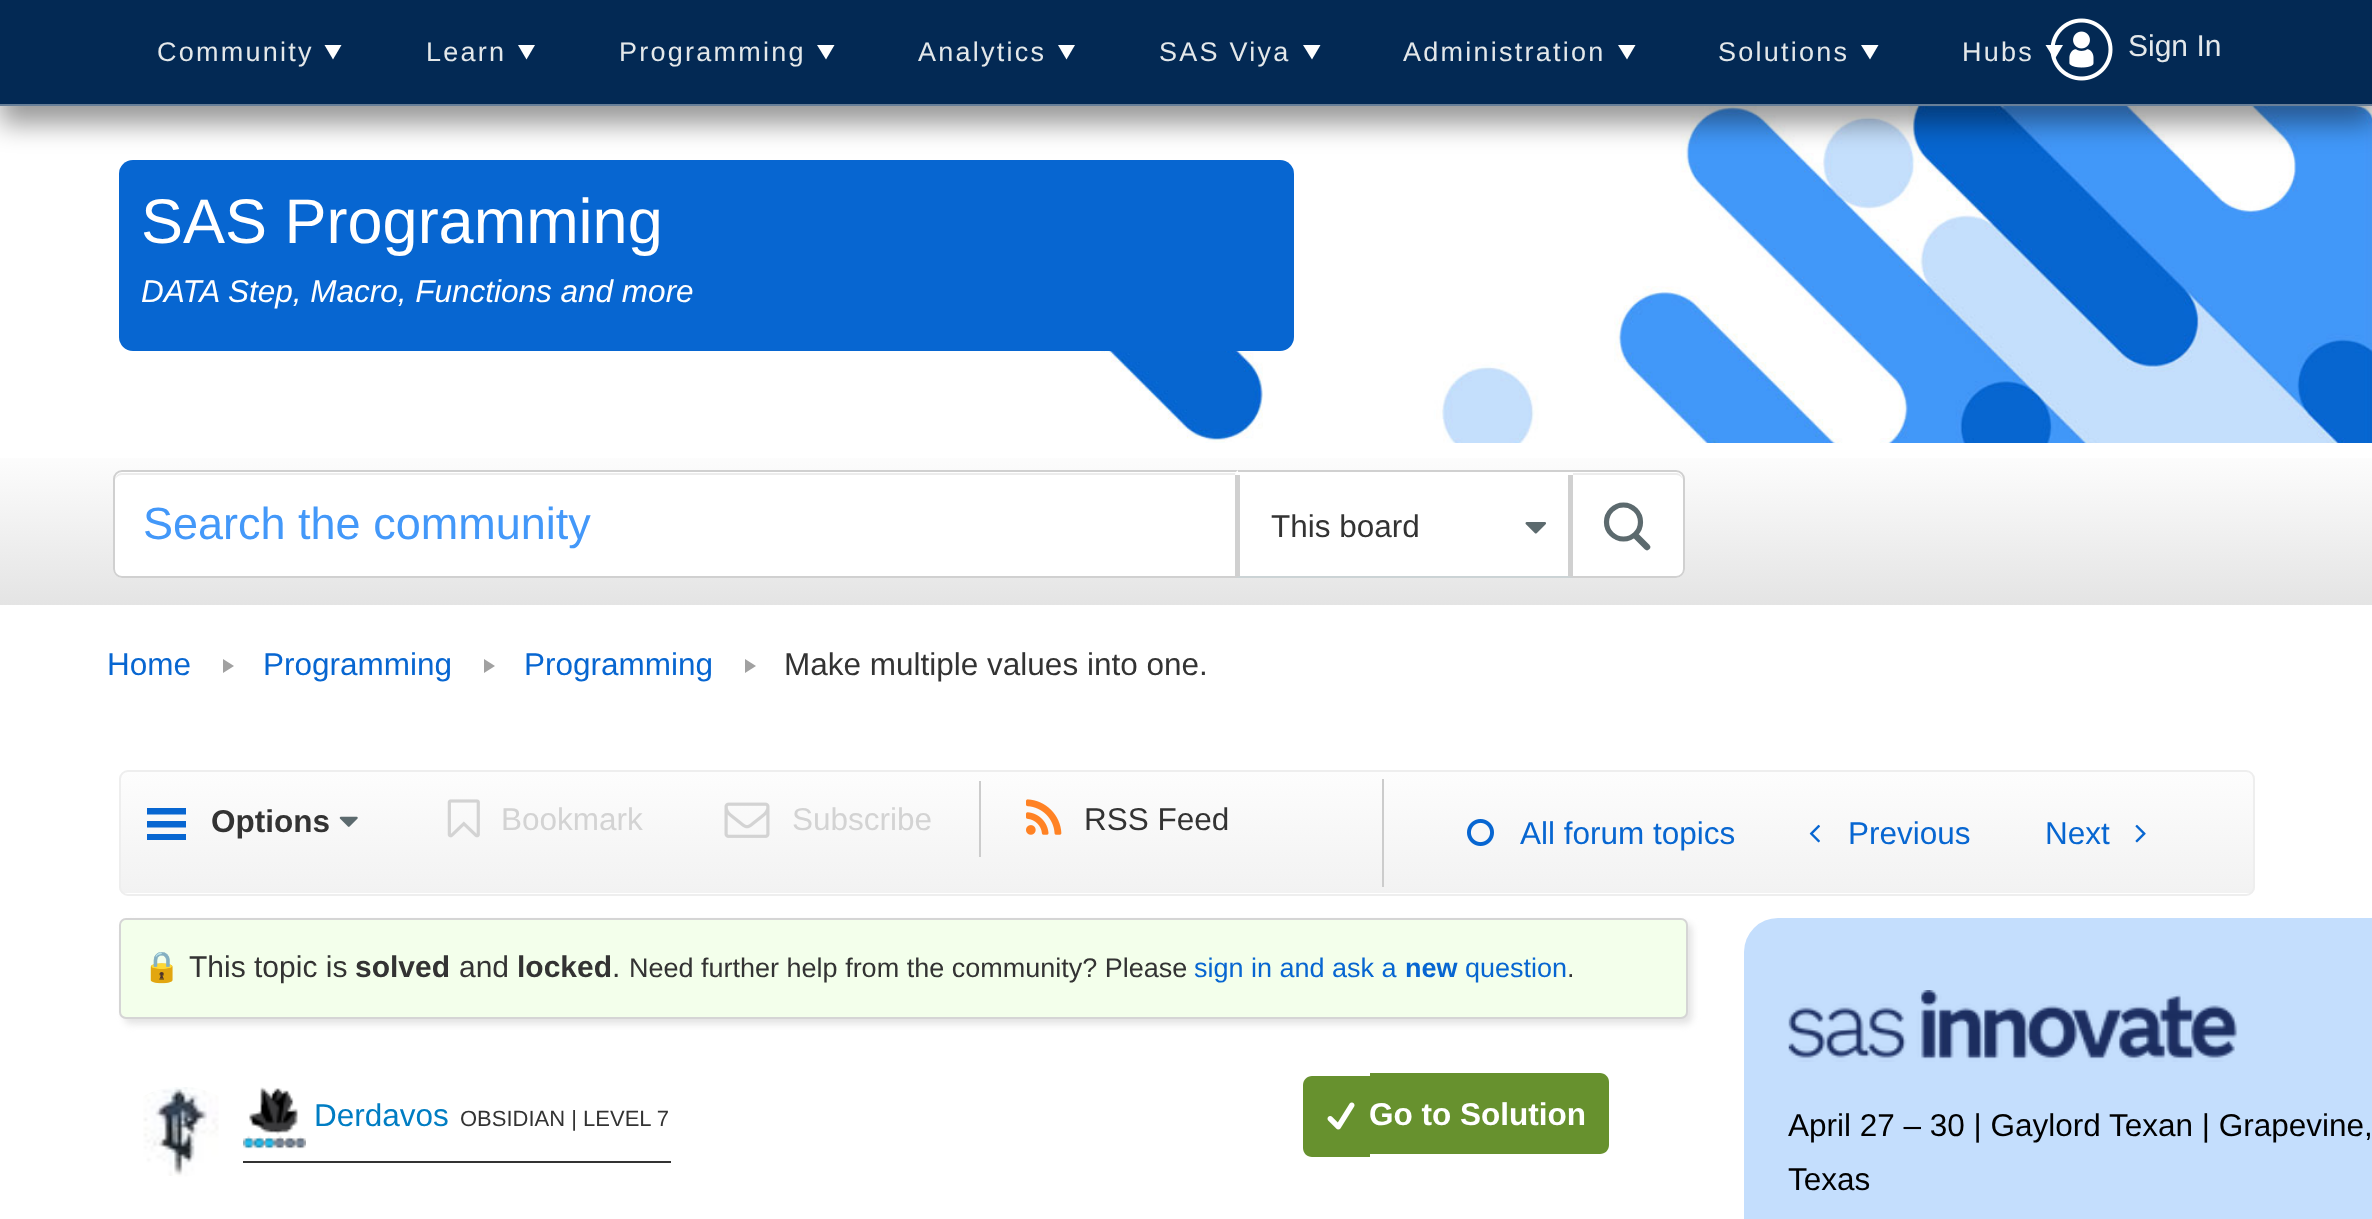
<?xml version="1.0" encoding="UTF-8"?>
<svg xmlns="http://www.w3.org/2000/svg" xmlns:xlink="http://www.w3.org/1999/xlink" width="2372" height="1219">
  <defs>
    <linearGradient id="g1" gradientUnits="userSpaceOnUse" x1="1187" y1="443" x2="1187" y2="605"><stop offset="0" stop-color="#ffffff" /><stop offset="1" stop-color="#e4e4e4" /></linearGradient>
    <clipPath id="clip1"><rect x="119" y="770" width="2136" height="126" rx="9" /></clipPath>
    <linearGradient id="g2" gradientUnits="userSpaceOnUse" x1="1187" y1="772" x2="1187" y2="893"><stop offset="0" stop-color="#fdfdfd" /><stop offset="1" stop-color="#f2f2f2" /></linearGradient>
  </defs>
  <rect width="100%" height="100%" fill="#ffffff" />
  <image x="1082" y="106" width="1290" height="337" xlink:href="image2.png" />
  <rect y="18" width="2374" height="106" fill="#000000" fill-opacity="0.4" filter="blur(13.5px)" />
  <rect width="2372" height="104" fill="#032954" />
  <rect y="104" width="2372" height="2" fill="#687f98" />
  <path d="M 333 59.5 l -8.5 -14.5 h 17 z" fill="#ffffff" />
  <path d="M 526.5 59.5 l -8.5 -14.5 h 17 z" fill="#ffffff" />
  <path d="M 826 59.5 l -9 -14.5 h 17.5 z" fill="#ffffff" />
  <path d="M 1066.5 59.5 l -8.5 -14.5 h 17 z" fill="#ffffff" />
  <path d="M 1312 59.5 l -9 -14.5 h 17.5 z" fill="#ffffff" />
  <path d="M 1627 59.5 l -9 -14.5 h 17.5 z" fill="#ffffff" />
  <path d="M 1870 59.5 l -9 -14.5 h 17.5 z" fill="#ffffff" />
  <path d="M 2054.5 59.5 l -9 -14.5 h 17.5 z" fill="#ffffff" />
  <image x="2050" y="18" width="63" height="63" xlink:href="image1.png" />
  <rect x="119" y="160" width="1175" height="191" rx="14" fill="#0766d1" />
  <rect y="458" width="2372" height="147" fill="url(#g1)" />
  <rect x="113" y="470" width="1572" height="108" rx="9" fill="#ffffff" />
  <path d="M 122 475 h 1554 c 4 0 7 3 7 7 c 0 -4 -2 -9 -7 -9 h -1554 c -5 0 -7 5 -7 9 c 0 -4 3 -7 7 -7 z" fill="#ececec" />
  <rect x="114" y="471" width="1570" height="106" rx="8" fill="none" stroke="#d0d0d0" stroke-width="2" />
  <circle cx="1623.5" cy="522" r="17" fill="none" stroke="#5c6a6e" stroke-width="5.2" />
  <path d="M 1636.5 536.5 l 10.5 10.5" fill="none" stroke="#5c6a6e" stroke-width="6.5" stroke-linecap="round" />
  <path d="M 1240 470 h 333 v 106 h -333 c -3 0 -5 -2 -5 -5 v -96 c 0 -3 2 -5 5 -5 z" fill="#ffffff" />
  <rect x="1238" y="470" width="335" height="2" fill="#d0d0d0" />
  <path d="M 1573 475 v 103 l -5 -2 v -101 z" fill="#d0d0d0" />
  <path d="M 1573 578 h -338 l 5 -2 h 328 z" fill="#cbd3d5" />
  <path d="M 1235 578 v -103 h 5 v 101 z" fill="#d0d0d0" />
  <image x="1525" y="522" width="21" height="12" xlink:href="image3.png" />
  <path d="M 234 666 l -11 7 v -14 z" fill="#a1a1a1" />
  <path d="M 495 666 l -11 7 v -14 z" fill="#a1a1a1" />
  <path d="M 756 666 l -11 7 v -14 z" fill="#a1a1a1" />
  <g clip-path="url(#clip1)">
    <rect x="119" y="772" width="2136" height="121" fill="url(#g2)" />
  </g>
  <rect x="120" y="771" width="2134" height="124" rx="8" fill="none" stroke="#eeeeee" stroke-width="2" />
  <path d="M 186 814.5 h -39 v -6.5 h 39 z m 0 13 h -39 v -6.5 h 39 z m 0 12.5 h -39 v -6 h 39 z" fill="#0766d1" />
  <image x="339" y="816" width="19" height="11" xlink:href="image4.png" />
  <image x="447" y="799" width="33" height="39" xlink:href="image5.png" />
  <image x="724" y="802" width="46" height="36" xlink:href="image6.png" />
  <rect x="979" y="781" width="2" height="76" fill="#cccccc" />
  <image x="1026" y="799" width="36" height="36" xlink:href="image7.png" />
  <rect x="1382" y="779" width="2" height="108" fill="#cccccc" />
  <image x="1467" y="819" width="27" height="27" xlink:href="image8.png" />
  <image x="1809" y="824" width="11" height="19" xlink:href="image9.png" />
  <image x="2135" y="824" width="11" height="19" xlink:href="image10.png" />
  <rect x="124" y="923" width="1568" height="101" rx="7" fill="#e3e3e3" filter="blur(3.5px)" />
  <rect x="120" y="919" width="1567" height="99" rx="6" fill="#f3ffeb" stroke="#d5d5d5" stroke-width="2" />
  <image x="143" y="1087" width="76" height="90" xlink:href="image11.png" />
  <rect x="243" y="1161" width="428" height="2" fill="#333333" />
  <image x="243" y="1087" width="63" height="62" xlink:href="image12.png" />
  <path d="M 1312 1076 h 58 v 81 h -58 c -5 0 -9 -4 -9 -9 v -63 c 0 -5 4 -9 9 -9 z" fill="#67912e" />
  <image x="1327" y="1102" width="28" height="28" xlink:href="image13.png" />
  <path d="M 1370 1073 h 230 c 5 0 9 4 9 9 v 63 c 0 5 -4 9 -9 9 h -230 z" fill="#67912e" />
  <rect x="1744" y="918" width="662" height="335" rx="34" fill="#c4defd" />
  <image x="1788" y="990" width="450" height="72" xlink:href="image14.png" />
  <text x="157" y="61" style="font-family: Liberation Sans; font-size: 27px; letter-spacing: 2.25px; fill: #e4e8ea">Community</text>
  <text x="426" y="61" style="font-family: Liberation Sans; font-size: 27px; letter-spacing: 2.25px; fill: #e4e8ea">Learn</text>
  <text x="619" y="61" style="font-family: Liberation Sans; font-size: 27px; letter-spacing: 2.25px; fill: #e4e8ea">Programming</text>
  <text x="918" y="61" style="font-family: Liberation Sans; font-size: 27px; letter-spacing: 2.25px; fill: #e4e8ea">Analytics</text>
  <text x="1159" y="61" style="font-family: Liberation Sans; font-size: 27px; letter-spacing: 2.25px; fill: #e4e8ea">SAS Viya</text>
  <text x="1403" y="61" style="font-family: Liberation Sans; font-size: 27px; letter-spacing: 2.25px; fill: #e4e8ea">Administration</text>
  <text x="1718" y="61" style="font-family: Liberation Sans; font-size: 27px; letter-spacing: 2.25px; fill: #e4e8ea">Solutions</text>
  <text x="1962" y="61" style="font-family: Liberation Sans; font-size: 27px; letter-spacing: 2.25px; fill: #e4e8ea">Hubs</text>
  <text x="2128" y="56" style="font-family: Liberation Sans; font-size: 30px; fill: #e4e8ea">Sign In</text>
  <text x="141" y="243" style="font-family: Liberation Sans; font-size: 63px; fill: #ffffff">SAS Programming</text>
  <text x="141" y="302" style="font-family: Liberation Sans; font-size: 31.5px; font-style: italic; fill: #ffffff">DATA Step, Macro, Functions and more</text>
  <text x="143" y="539" style="font-family: Liberation Sans; font-size: 45px; fill: #4398f9">Search the community</text>
  <text x="1271" y="537" style="font-family: Liberation Sans; font-size: 31.5px; fill: #333333">This board</text>
  <text x="107" y="675" style="font-family: Liberation Sans; font-size: 31.5px; fill: #0766d1">Home</text>
  <text x="263" y="675" style="font-family: Liberation Sans; font-size: 31.5px; fill: #0766d1">Programming</text>
  <text x="524" y="675" style="font-family: Liberation Sans; font-size: 31.5px; fill: #0766d1">Programming</text>
  <text x="784" y="675" style="font-family: Liberation Sans; font-size: 31.5px; fill: #333333">Make multiple values into one.</text>
  <text x="211" y="832" style="font-family: Liberation Sans; font-size: 31.5px; font-weight: bold; fill: #333333">Options</text>
  <text x="501" y="830" style="font-family: Liberation Sans; font-size: 31.5px; fill: #d3d3d3">Bookmark</text>
  <text x="792" y="830" style="font-family: Liberation Sans; font-size: 31.5px; fill: #d3d3d3">Subscribe</text>
  <text x="1084" y="830" style="font-family: Liberation Sans; font-size: 31.5px; fill: #333333">RSS Feed</text>
  <text x="1520" y="844" style="font-family: Liberation Sans; font-size: 31.5px; fill: #0766d1">All forum topics</text>
  <text x="1848" y="844" style="font-family: Liberation Sans; font-size: 31.5px; fill: #0766d1">Previous</text>
  <text x="2045" y="844" style="font-family: Liberation Sans; font-size: 31.5px; fill: #0766d1">Next</text>
  <text x="143" y="977" style="font-family: Noto Color Emoji; font-size: 30px; fill: #333333">🔒</text>
  <text x="189" y="977" style="font-family: Liberation Sans; font-size: 30px; fill: #333333">This topic is</text>
  <text x="355" y="977" style="font-family: Liberation Sans; font-size: 30px; font-weight: bold; fill: #333333">solved</text>
  <text x="459" y="977" style="font-family: Liberation Sans; font-size: 30px; fill: #333333">and</text>
  <text x="517" y="977" style="font-family: Liberation Sans; font-size: 30px; font-weight: bold; fill: #333333">locked</text>
  <text x="612" y="977" style="font-family: Liberation Sans; font-size: 30px; fill: #333333">.</text>
  <text x="629" y="977" style="font-family: Liberation Sans; font-size: 27px; fill: #333333">Need further help from the community? Please</text>
  <text x="1194" y="977" style="font-family: Liberation Sans; font-size: 27px; fill: #0766d1">sign in and ask a</text>
  <text x="1405" y="977" style="font-family: Liberation Sans; font-size: 27px; font-weight: bold; fill: #0766d1">new</text>
  <text x="1465" y="977" style="font-family: Liberation Sans; font-size: 27px; fill: #0766d1">question</text>
  <text x="1567" y="977" style="font-family: Liberation Sans; font-size: 27px; fill: #333333">.</text>
  <text x="314" y="1126" style="font-family: Liberation Sans; font-size: 31.5px; fill: #007dc3">Derdavos</text>
  <text x="460" y="1126" style="font-family: Liberation Sans; font-size: 22px; fill: #333333">OBSIDIAN | LEVEL 7</text>
  <text x="1369" y="1125" style="font-family: Liberation Sans; font-size: 31.5px; font-weight: bold; fill: #ffffff">Go to Solution</text>
  <text x="1788" y="1136" style="font-family: Liberation Sans; font-size: 31.5px; fill: #000000">April 27 – 30 | Gaylord Texan | Grapevine,</text>
  <text x="1788" y="1190" style="font-family: Liberation Sans; font-size: 31.5px; fill: #000000">Texas</text>
</svg>
